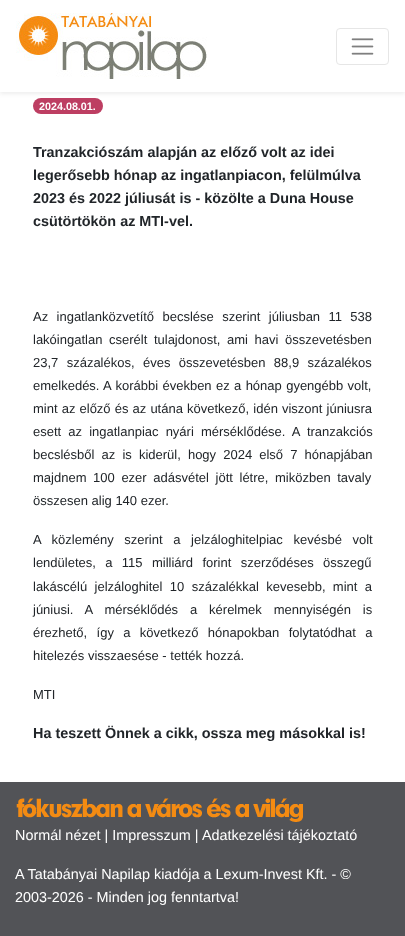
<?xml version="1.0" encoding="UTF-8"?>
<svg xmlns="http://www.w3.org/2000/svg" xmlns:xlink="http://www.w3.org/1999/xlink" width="405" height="936">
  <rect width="100%" height="100%" fill="#ffffff" />
  <rect x="33" y="98" width="70" height="16" rx="8" fill="#bd3e62" />
  <rect y="2" width="405" height="92" fill="#000000" fill-opacity="0.07" filter="blur(2px)" />
  <rect width="405" height="92" fill="#ffffff" />
  <image x="16" y="13" width="191" height="66" xlink:href="image1.png" />
  <rect x="336.5" y="28.5" width="52" height="36" rx="3.5" fill="none" stroke="#e6e6e6" />
  <image x="351" y="38" width="23" height="17" xlink:href="image2.png" />
  <rect y="782" width="405" height="154" fill="#525357" />
  <image x="16" y="798" width="287" height="24" xlink:href="image3.png" />
  <text x="39" y="110" style="font-family: Liberation Sans; font-size: 10.75px; font-weight: bold; fill: #ffffff">2024.08.01.</text>
  <text x="33" y="157" style="font-family: Liberation Sans; font-size: 14.4px; font-weight: bold; fill: #212529">Tranzakciószám alapján az előző volt az idei</text>
  <text x="33" y="180" style="font-family: Liberation Sans; font-size: 14.4px; font-weight: bold; fill: #212529">legerősebb hónap az ingatlanpiacon, felülmúlva</text>
  <text x="33" y="203" style="font-family: Liberation Sans; font-size: 14.4px; font-weight: bold; fill: #212529">2023 és 2022 júliusát is - közölte a Duna House</text>
  <text x="33" y="226" style="font-family: Liberation Sans; font-size: 14.4px; font-weight: bold; fill: #212529">csütörtökön az MTI-vel.</text>
  <text x="33" y="321" word-spacing="4.75" style="font-family: Liberation Sans; font-size: 13px; fill: #212529">Az ingatlanközvetítő becslése szerint júliusban 11 538</text>
  <text x="33" y="344" word-spacing="3" style="font-family: Liberation Sans; font-size: 13px; fill: #212529">lakóingatlan cserélt tulajdonost, ami havi összevetésben</text>
  <text x="33" y="367" word-spacing="4.75" style="font-family: Liberation Sans; font-size: 13px; fill: #212529">23,7 százalékos, éves összevetésben 88,9 százalékos</text>
  <text x="33" y="390" word-spacing="0.75" style="font-family: Liberation Sans; font-size: 13px; fill: #212529">emelkedés. A korábbi években ez a hónap gyengébb volt,</text>
  <text x="33" y="413" word-spacing="0.5" style="font-family: Liberation Sans; font-size: 13px; fill: #212529">mint az előző és az utána következő, idén viszont júniusra</text>
  <text x="33" y="436" word-spacing="3.5" style="font-family: Liberation Sans; font-size: 13px; fill: #212529">esett az ingatlanpiac nyári mérséklődése. A tranzakciós</text>
  <text x="33" y="459" word-spacing="3.5" style="font-family: Liberation Sans; font-size: 13px; fill: #212529">becslésből az is kiderül, hogy 2024 első 7 hónapjában</text>
  <text x="33" y="482" word-spacing="3" style="font-family: Liberation Sans; font-size: 13px; fill: #212529">majdnem 100 ezer adásvétel jött létre, miközben tavaly</text>
  <text x="33" y="505" style="font-family: Liberation Sans; font-size: 13px; fill: #212529">összesen alig 140 ezer.</text>
  <text x="33" y="544" word-spacing="7" style="font-family: Liberation Sans; font-size: 13px; fill: #212529">A közlemény szerint a jelzáloghitelpiac kevésbé volt</text>
  <text x="33" y="567" word-spacing="5.75" style="font-family: Liberation Sans; font-size: 13px; fill: #212529">lendületes, a 115 milliárd forint szerződéses összegű</text>
  <text x="33" y="591" word-spacing="3.75" style="font-family: Liberation Sans; font-size: 13px; fill: #212529">lakáscélú jelzáloghitel 10 százalékkal kevesebb, mint a</text>
  <text x="33" y="614" word-spacing="8.25" style="font-family: Liberation Sans; font-size: 13px; fill: #212529">júniusi. A mérséklődés a kérelmek mennyiségén is</text>
  <text x="33" y="637" word-spacing="5.75" style="font-family: Liberation Sans; font-size: 13px; fill: #212529">érezhető, így a következő hónapokban folytatódhat a</text>
  <text x="33" y="660" style="font-family: Liberation Sans; font-size: 13px; fill: #212529">hitelezés visszaesése - tették hozzá.</text>
  <text x="33" y="699" style="font-family: Liberation Sans; font-size: 13px; fill: #212529">MTI</text>
  <text x="33" y="738" style="font-family: Liberation Sans; font-size: 14.4px; font-weight: bold; fill: #212529">Ha teszett Önnek a cikk, ossza meg másokkal is!</text>
  <text x="15" y="840" style="font-family: Liberation Sans; font-size: 14.4px; fill: #ffffff">Normál nézet | Impresszum |</text>
  <text x="202" y="840" style="font-family: Liberation Sans; font-size: 14.4px; fill: #ffffff">Adatkezelési tájékoztató</text>
  <text x="15" y="879" style="font-family: Liberation Sans; font-size: 14.4px; fill: #ffffff">A Tatabányai Napilap kiadója a Lexum-Invest Kft. - ©</text>
  <text x="15" y="902" style="font-family: Liberation Sans; font-size: 14.4px; fill: #ffffff">2003-2026 - Minden jog fenntartva!</text>
</svg>
